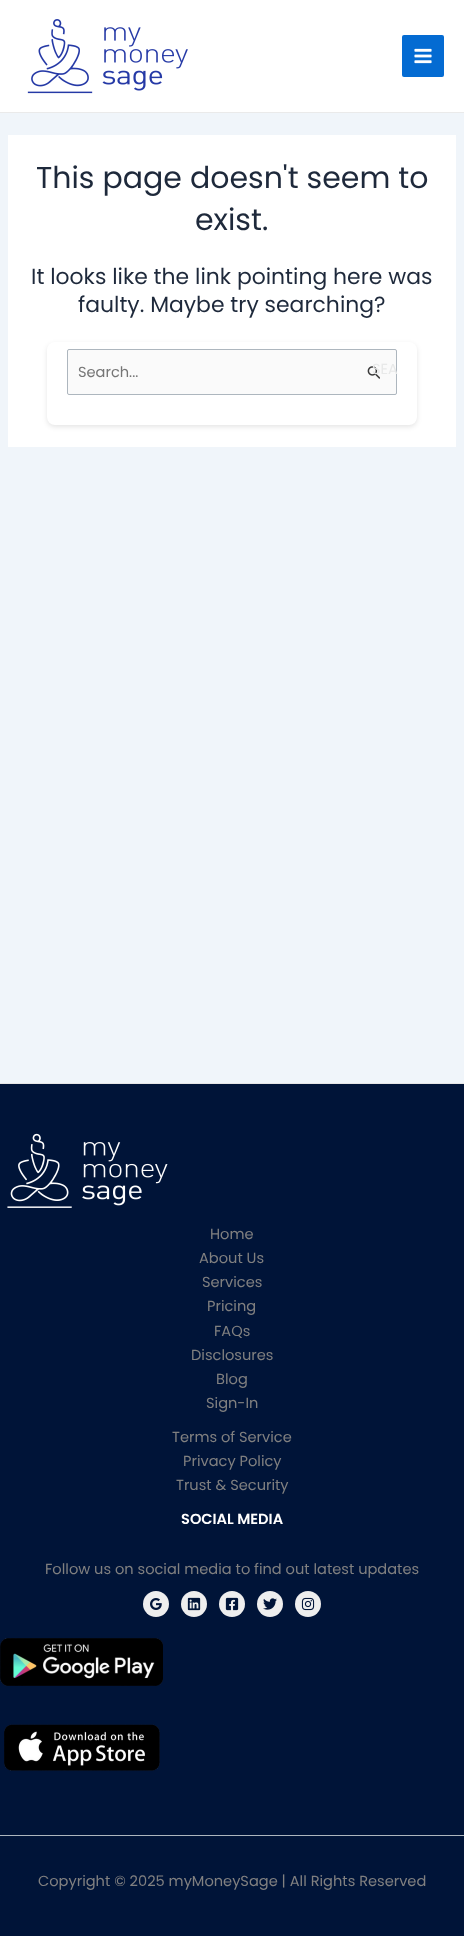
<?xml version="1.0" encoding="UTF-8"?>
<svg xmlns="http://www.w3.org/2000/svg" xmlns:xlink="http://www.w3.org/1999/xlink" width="464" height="1936">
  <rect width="100%" height="100%" fill="#f0f5fa" />
  <rect width="464" height="112" fill="#ffffff" />
  <rect y="112" width="464" height="1" fill="#eaeaea" />
  <image x="27" y="19" width="161" height="75" xlink:href="image1.png" />
  <rect x="402" y="35" width="42" height="42" rx="2" fill="#046bd2" />
  <image x="414" y="48" width="18" height="16" xlink:href="image2.png" />
  <rect x="8" y="135" width="448" height="312" fill="#ffffff" />
  <rect x="47" y="344" width="370" height="83" rx="8" fill="#000000" fill-opacity="0.1" filter="blur(2.5px)" />
  <rect x="47" y="342" width="370" height="83" rx="8" fill="#ffffff" />
  <rect x="67.5" y="349.5" width="329" height="45" rx="1.5" fill="#fafafa" stroke="#adb6be" />
  <image x="367" y="366" width="13" height="13" xlink:href="image3.png" />
  <rect y="1084" width="464" height="751" fill="#001438" />
  <rect y="1083" width="464" height="1" fill="#e6e6e6" />
  <image x="7" y="1133" width="161" height="75" xlink:href="image4.png" />
  <circle cx="156" cy="1604" r="13" fill="#eeeeee" />
  <image x="150" y="1598" width="12" height="12" xlink:href="image5.png" />
  <circle cx="194" cy="1604" r="13" fill="#eeeeee" />
  <image x="187" y="1597" width="14" height="14" xlink:href="image6.png" />
  <circle cx="232" cy="1604" r="13" fill="#eeeeee" />
  <image x="225" y="1597" width="14" height="14" xlink:href="image7.png" />
  <circle cx="270" cy="1604" r="13" fill="#eeeeee" />
  <image x="263" y="1598" width="14" height="12" xlink:href="image8.png" />
  <circle cx="308" cy="1604" r="13" fill="#eeeeee" />
  <image x="301" y="1597" width="14" height="14" xlink:href="image9.png" />
  <image x="0" y="1638" width="163" height="48" xlink:href="image10.png" />
  <image x="4" y="1724" width="156" height="47" xlink:href="image11.png" />
  <rect y="1836" width="464" height="100" fill="#001438" />
  <rect y="1835" width="464" height="1" fill="#adb6be" />
  <text x="36" y="188" style="font-family: Poppins; font-size: 30px; fill: #1e293b">This page doesn't seem to</text>
  <text x="195" y="230" style="font-family: Poppins; font-size: 30px; fill: #1e293b">exist.</text>
  <text x="31" y="284" style="font-family: Poppins; font-size: 21.9px; fill: #1e293b">It looks like the link pointing here was</text>
  <text x="78" y="312" style="font-family: Poppins; font-size: 21.9px; fill: #1e293b">faulty. Maybe try searching?</text>
  <text x="78" y="377" style="font-family: Poppins; font-size: 14.6px; fill: #757575">Search...</text>
  <text x="372" y="374" style="font-family: Poppins; font-size: 14.6px; fill: #e8e9e9">SEA</text>
  <text x="210" y="1239" style="font-family: Poppins; font-size: 14.6px; fill: #808080">Home</text>
  <text x="199" y="1263" style="font-family: Poppins; font-size: 14.6px; fill: #808080">About Us</text>
  <text x="202" y="1287" style="font-family: Poppins; font-size: 14.6px; fill: #808080">Services</text>
  <text x="207" y="1311" style="font-family: Poppins; font-size: 14.6px; fill: #808080">Pricing</text>
  <text x="214" y="1336" style="font-family: Poppins; font-size: 14.6px; fill: #808080">FAQs</text>
  <text x="191" y="1360" style="font-family: Poppins; font-size: 14.6px; fill: #808080">Disclosures</text>
  <text x="216" y="1384" style="font-family: Poppins; font-size: 14.6px; fill: #808080">Blog</text>
  <text x="206" y="1408" style="font-family: Poppins; font-size: 14.6px; fill: #808080">Sign-In</text>
  <text x="172" y="1442" style="font-family: Poppins; font-size: 14.6px; fill: #808080">Terms of Service</text>
  <text x="183" y="1466" style="font-family: Poppins; font-size: 14.6px; fill: #808080">Privacy Policy</text>
  <text x="176" y="1490" style="font-family: Poppins; font-size: 14.6px; fill: #808080">Trust &amp; Security</text>
  <text x="181" y="1524" style="font-family: Poppins; font-size: 14.6px; font-weight: 600; fill: #ffffff">SOCIAL MEDIA</text>
  <text x="45" y="1574" style="font-family: Poppins; font-size: 14.6px; fill: #808080">Follow us on social media to find out latest updates</text>
  <text x="38" y="1886" style="font-family: Poppins; font-size: 14.6px; fill: #808080">Copyright © 2025 myMoneySage | All Rights Reserved</text>
</svg>
